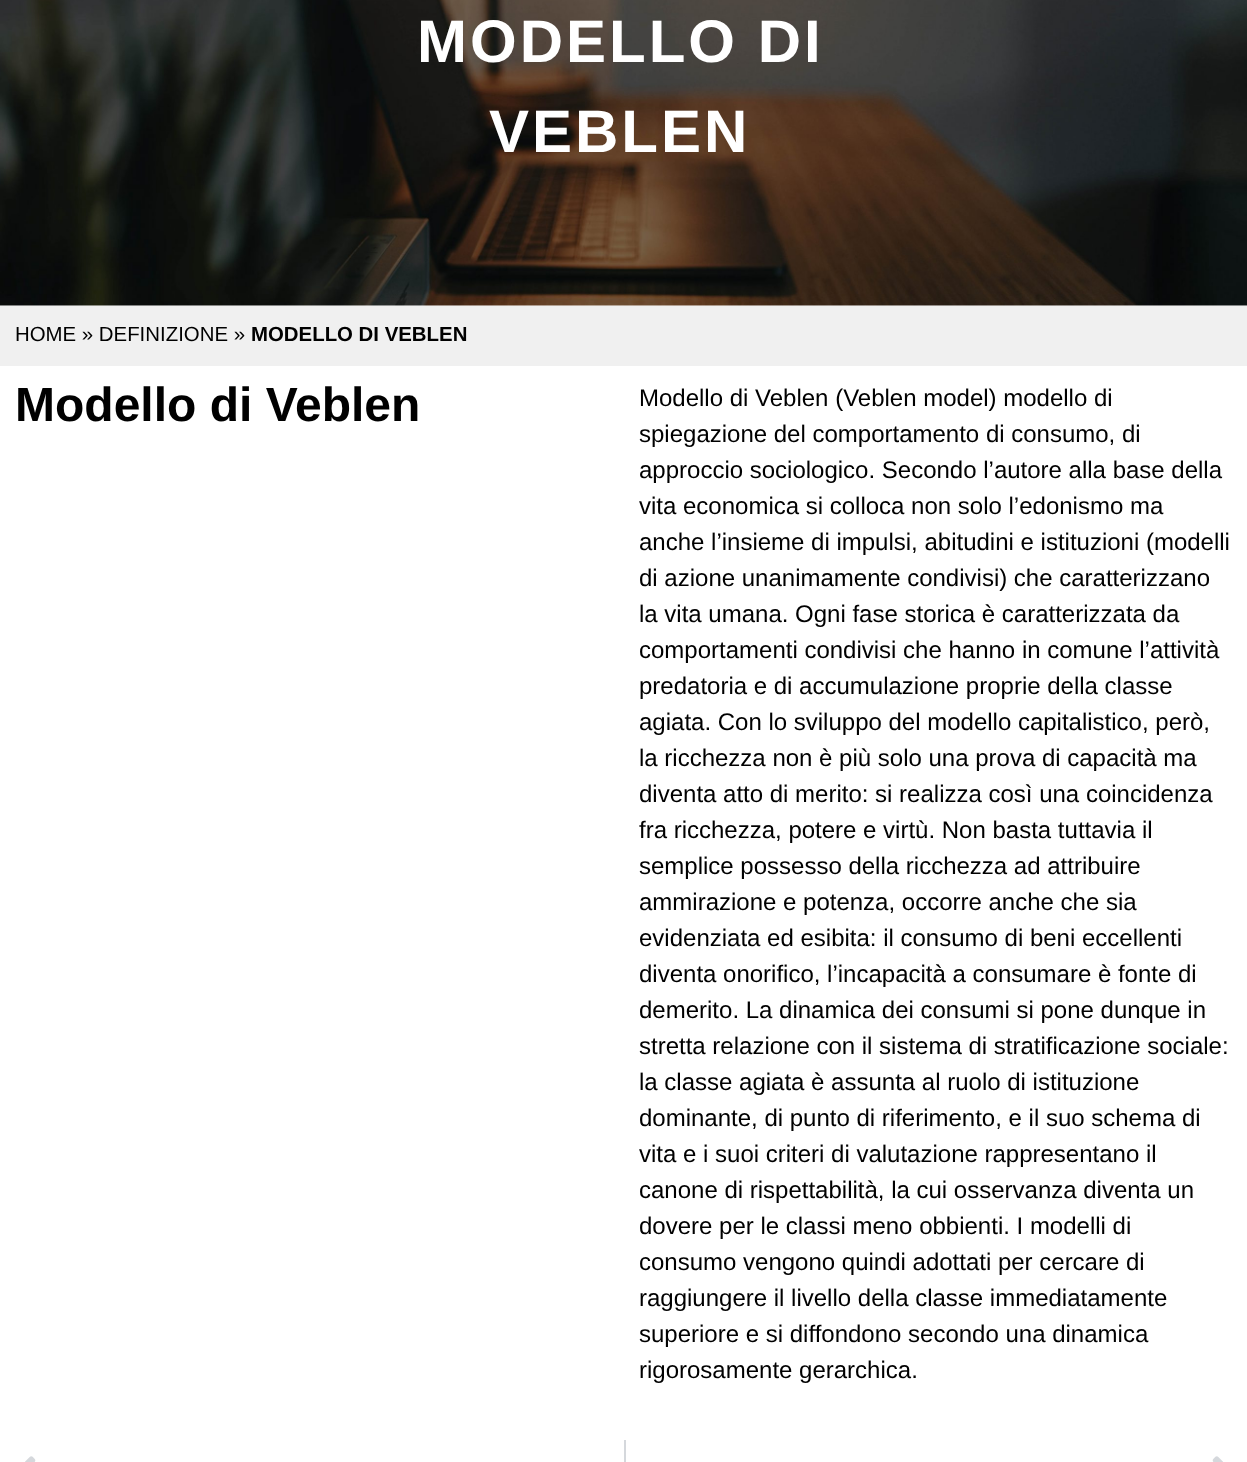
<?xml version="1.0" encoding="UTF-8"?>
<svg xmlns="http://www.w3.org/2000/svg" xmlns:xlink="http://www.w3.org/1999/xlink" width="1247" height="1462">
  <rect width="100%" height="100%" fill="#ffffff" />
  <image x="0" y="0" width="1247" height="306" xlink:href="image1.png" />
  <rect y="306" width="1247" height="60" fill="#f0f0f0" />
  <image x="25" y="1456" width="11" height="6" xlink:href="image2.png" />
  <rect x="624" y="1440" width="2" height="22" fill="#d5d8dc" />
  <image x="1212" y="1456" width="11" height="6" xlink:href="image3.png" />
  <text x="417" y="62" style="font-family: Liberation Sans; font-size: 60px; font-weight: bold; letter-spacing: 3px; fill: #ffffff">MODELLO DI</text>
  <text x="489" y="152" style="font-family: Liberation Sans; font-size: 60px; font-weight: bold; letter-spacing: 3px; fill: #ffffff">VEBLEN</text>
  <text x="15" y="341" style="font-family: Liberation Sans; font-size: 20.4px; fill: #000000">HOME » DEFINIZIONE »</text>
  <text x="251" y="341" style="font-family: Liberation Sans; font-size: 20.4px; font-weight: bold; fill: #000000">MODELLO DI VEBLEN</text>
  <text x="15" y="421" style="font-family: Liberation Sans; font-size: 48px; font-weight: bold; fill: #000000">Modello di Veblen</text>
  <text x="639" y="406" style="font-family: Liberation Sans; font-size: 24px; fill: #000000">Modello di Veblen (Veblen model) modello di</text>
  <text x="639" y="442" style="font-family: Liberation Sans; font-size: 24px; fill: #000000">spiegazione del comportamento di consumo, di</text>
  <text x="639" y="478" style="font-family: Liberation Sans; font-size: 24px; fill: #000000">approccio sociologico. Secondo l’autore alla base della</text>
  <text x="639" y="514" style="font-family: Liberation Sans; font-size: 24px; fill: #000000">vita economica si colloca non solo l’edonismo ma</text>
  <text x="639" y="550" style="font-family: Liberation Sans; font-size: 24px; fill: #000000">anche l’insieme di impulsi, abitudini e istituzioni (modelli</text>
  <text x="639" y="586" style="font-family: Liberation Sans; font-size: 24px; fill: #000000">di azione unanimamente condivisi) che caratterizzano</text>
  <text x="639" y="622" style="font-family: Liberation Sans; font-size: 24px; fill: #000000">la vita umana. Ogni fase storica è caratterizzata da</text>
  <text x="639" y="658" style="font-family: Liberation Sans; font-size: 24px; fill: #000000">comportamenti condivisi che hanno in comune l’attività</text>
  <text x="639" y="694" style="font-family: Liberation Sans; font-size: 24px; fill: #000000">predatoria e di accumulazione proprie della classe</text>
  <text x="639" y="730" style="font-family: Liberation Sans; font-size: 24px; fill: #000000">agiata. Con lo sviluppo del modello capitalistico, però,</text>
  <text x="639" y="766" style="font-family: Liberation Sans; font-size: 24px; fill: #000000">la ricchezza non è più solo una prova di capacità ma</text>
  <text x="639" y="802" style="font-family: Liberation Sans; font-size: 24px; fill: #000000">diventa atto di merito: si realizza così una coincidenza</text>
  <text x="639" y="838" style="font-family: Liberation Sans; font-size: 24px; fill: #000000">fra ricchezza, potere e virtù. Non basta tuttavia il</text>
  <text x="639" y="874" style="font-family: Liberation Sans; font-size: 24px; fill: #000000">semplice possesso della ricchezza ad attribuire</text>
  <text x="639" y="910" style="font-family: Liberation Sans; font-size: 24px; fill: #000000">ammirazione e potenza, occorre anche che sia</text>
  <text x="639" y="946" style="font-family: Liberation Sans; font-size: 24px; fill: #000000">evidenziata ed esibita: il consumo di beni eccellenti</text>
  <text x="639" y="982" style="font-family: Liberation Sans; font-size: 24px; fill: #000000">diventa onorifico, l’incapacità a consumare è fonte di</text>
  <text x="639" y="1018" style="font-family: Liberation Sans; font-size: 24px; fill: #000000">demerito. La dinamica dei consumi si pone dunque in</text>
  <text x="639" y="1054" style="font-family: Liberation Sans; font-size: 24px; fill: #000000">stretta relazione con il sistema di stratificazione sociale:</text>
  <text x="639" y="1090" style="font-family: Liberation Sans; font-size: 24px; fill: #000000">la classe agiata è assunta al ruolo di istituzione</text>
  <text x="639" y="1126" style="font-family: Liberation Sans; font-size: 24px; fill: #000000">dominante, di punto di riferimento, e il suo schema di</text>
  <text x="639" y="1162" style="font-family: Liberation Sans; font-size: 24px; fill: #000000">vita e i suoi criteri di valutazione rappresentano il</text>
  <text x="639" y="1198" style="font-family: Liberation Sans; font-size: 24px; fill: #000000">canone di rispettabilità, la cui osservanza diventa un</text>
  <text x="639" y="1234" style="font-family: Liberation Sans; font-size: 24px; fill: #000000">dovere per le classi meno obbienti. I modelli di</text>
  <text x="639" y="1270" style="font-family: Liberation Sans; font-size: 24px; fill: #000000">consumo vengono quindi adottati per cercare di</text>
  <text x="639" y="1306" style="font-family: Liberation Sans; font-size: 24px; fill: #000000">raggiungere il livello della classe immediatamente</text>
  <text x="639" y="1342" style="font-family: Liberation Sans; font-size: 24px; fill: #000000">superiore e si diffondono secondo una dinamica</text>
  <text x="639" y="1378" style="font-family: Liberation Sans; font-size: 24px; fill: #000000">rigorosamente gerarchica.</text>
</svg>
